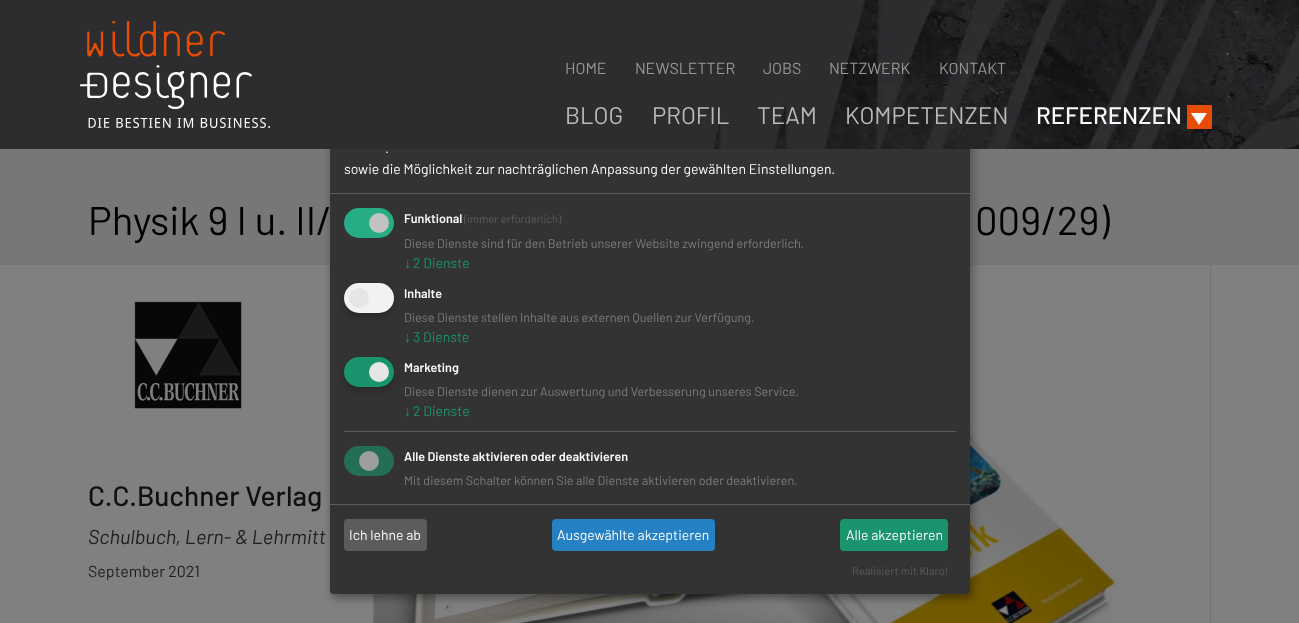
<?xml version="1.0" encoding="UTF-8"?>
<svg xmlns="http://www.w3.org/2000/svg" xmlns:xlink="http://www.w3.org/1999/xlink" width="1299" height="623">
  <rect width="100%" height="100%" fill="#787777" />
  <rect y="265" width="1299" height="358" fill="#808080" />
  <rect x="373" y="594" width="1" height="29" fill="#6f7173" />
  <rect x="1210" y="265" width="1" height="358" fill="#6f7173" />
  <image x="373" y="265" width="838" height="358" xlink:href="image4.png" />
  <rect x="335" y="35" width="640" height="564" rx="4" fill="#000000" fill-opacity="0.19" filter="blur(5px)" />
  <rect x="330" y="34" width="640" height="564" rx="4" fill="#000000" fill-opacity="0.2" filter="blur(3px)" />
  <rect x="330" y="30" width="640" height="564" rx="4" fill="#333333" />
  <rect width="713" height="149" fill="#2d2d2f" />
  <image x="713" y="0" width="586" height="149" xlink:href="image1.png" />
  <image x="80" y="21" width="190" height="107" xlink:href="image2.png" />
  <rect x="1187" y="105" width="25" height="24" fill="#e64c05" />
  <path d="M 1191 113 h 16 l -8 12 z" fill="#ffffff" />
  <image x="134" y="301" width="108" height="108" xlink:href="image3.png" />
  <rect x="330" y="193" width="640" height="1" fill="#5c5c5c" />
  <rect x="344" y="208" width="50" height="30" rx="15" fill="#27ad85" />
  <circle cx="379" cy="223" r="10" fill="#c2c2c2" />
  <rect x="344" y="287" width="50" height="30" rx="15" fill="#000000" fill-opacity="0.2" filter="blur(3px)" />
  <rect x="344" y="283" width="50" height="30" rx="15" fill="#f2f2f2" />
  <circle cx="359" cy="298" r="10" fill="#e6e6e6" />
  <rect x="344" y="361" width="50" height="30" rx="15" fill="#000000" fill-opacity="0.2" filter="blur(3px)" />
  <rect x="344" y="357" width="50" height="30" rx="15" fill="#1a936f" />
  <circle cx="379" cy="372" r="10" fill="#e6e6e6" />
  <rect x="344" y="431" width="612" height="1" fill="#5c5c5c" />
  <rect x="344" y="446" width="50" height="30" rx="15" fill="#246d57" />
  <circle cx="369" cy="461" r="10" fill="#9e9e9e" />
  <rect x="330" y="504" width="640" height="1" fill="#5c5c5c" />
  <rect x="344" y="519" width="83" height="32" rx="4" fill="#5c5c5c" />
  <rect x="552" y="519" width="163" height="32" rx="4" fill="#2581c4" />
  <rect x="840" y="519" width="108" height="32" rx="4" fill="#1a936f" />
  <text x="565" y="74" style="font-family: Barlow; font-size: 16px; fill: #989898">HOME</text>
  <text x="635" y="74" style="font-family: Barlow; font-size: 16px; fill: #989898">NEWSLETTER</text>
  <text x="763" y="74" style="font-family: Barlow; font-size: 16px; fill: #989898">JOBS</text>
  <text x="829" y="74" style="font-family: Barlow; font-size: 16px; fill: #989898">NETZWERK</text>
  <text x="939" y="74" style="font-family: Barlow; font-size: 16px; fill: #989898">KONTAKT</text>
  <text x="565" y="124" style="font-family: Barlow; font-size: 24px; fill: #bab9b8">BLOG</text>
  <text x="652" y="124" style="font-family: Barlow; font-size: 24px; fill: #bab9b8">PROFIL</text>
  <text x="757" y="124" style="font-family: Barlow; font-size: 24px; fill: #bab9b8">TEAM</text>
  <text x="845" y="124" style="font-family: Barlow; font-size: 24px; fill: #bab9b8">KOMPETENZEN</text>
  <text x="1036" y="124" style="font-family: Barlow; font-size: 24px; font-weight: 500; fill: #fafafa">REFERENZEN</text>
  <text x="88" y="235" style="font-family: Barlow; font-size: 40px; fill: #000000">Physik 9 I u. II/</text>
  <text x="975" y="235" style="font-family: Barlow; font-size: 40px; fill: #000000">009/29)</text>
  <text x="88" y="506" style="font-family: Barlow; font-size: 28px; font-weight: 500; fill: #0e1012">C.C.Buchner Verlag</text>
  <text x="88" y="544" style="font-family: Barlow; font-size: 20px; font-style: italic; fill: #1e1e1f">Schulbuch, Lern- &amp; Lehrmitt</text>
  <text x="88" y="577" style="font-family: Barlow; font-size: 16px; fill: #1e1e1f">September 2021</text>
  <text x="385" y="153" style="font-family: Barlow; font-size: 14px; fill: #fafafa">.</text>
  <text x="344" y="174" style="font-family: Barlow; font-size: 14px; fill: #fafafa">sowie die Möglichkeit zur nachträglichen Anpassung der gewählten Einstellungen.</text>
  <text x="404" y="223" style="font-family: Barlow; font-size: 12.6px; font-weight: 600; fill: #fafafa">Funktional</text>
  <text x="464" y="223" style="font-family: Barlow; font-size: 11.25px; fill: #5c5c5c">(immer erforderlich)</text>
  <text x="404" y="248" style="font-family: Barlow; font-size: 12.6px; fill: #7c7c7c">Diese Dienste sind für den Betrieb unserer Website zwingend erforderlich.</text>
  <text x="404" y="268" style="font-family: Liberation Sans; font-size: 14px; fill: #1a936f">↓</text>
  <text x="413" y="268" style="font-family: Barlow; font-size: 14px; fill: #1a936f">2 Dienste</text>
  <text x="404" y="298" style="font-family: Barlow; font-size: 12.6px; font-weight: 600; fill: #fafafa">Inhalte</text>
  <text x="404" y="322" style="font-family: Barlow; font-size: 12.6px; fill: #7c7c7c">Diese Dienste stellen Inhalte aus externen Quellen zur Verfügung.</text>
  <text x="404" y="342" style="font-family: Liberation Sans; font-size: 14px; fill: #1a936f">↓</text>
  <text x="413" y="342" style="font-family: Barlow; font-size: 14px; fill: #1a936f">3 Dienste</text>
  <text x="404" y="372" style="font-family: Barlow; font-size: 12.6px; font-weight: 600; fill: #fafafa">Marketing</text>
  <text x="404" y="396" style="font-family: Barlow; font-size: 12.6px; fill: #7c7c7c">Diese Dienste dienen zur Auswertung und Verbesserung unseres Service.</text>
  <text x="404" y="416" style="font-family: Liberation Sans; font-size: 14px; fill: #1a936f">↓</text>
  <text x="413" y="416" style="font-family: Barlow; font-size: 14px; fill: #1a936f">2 Dienste</text>
  <text x="404" y="461" style="font-family: Barlow; font-size: 12.6px; font-weight: 600; fill: #fafafa">Alle Dienste aktivieren oder deaktivieren</text>
  <text x="404" y="485" style="font-family: Barlow; font-size: 12.6px; fill: #7c7c7c">Mit diesem Schalter können Sie alle Dienste aktivieren oder deaktivieren.</text>
  <text x="349" y="540" style="font-family: Barlow; font-size: 14px; fill: #fafafa">Ich lehne ab</text>
  <text x="557" y="540" style="font-family: Barlow; font-size: 14px; fill: #fafafa">Ausgewählte akzeptieren</text>
  <text x="846" y="540" style="font-family: Barlow; font-size: 14px; fill: #fafafa">Alle akzeptieren</text>
  <text x="852" y="575" style="font-family: Barlow; font-size: 11.25px; fill: #5c5c5c">Realisiert mit Klaro!</text>
</svg>
